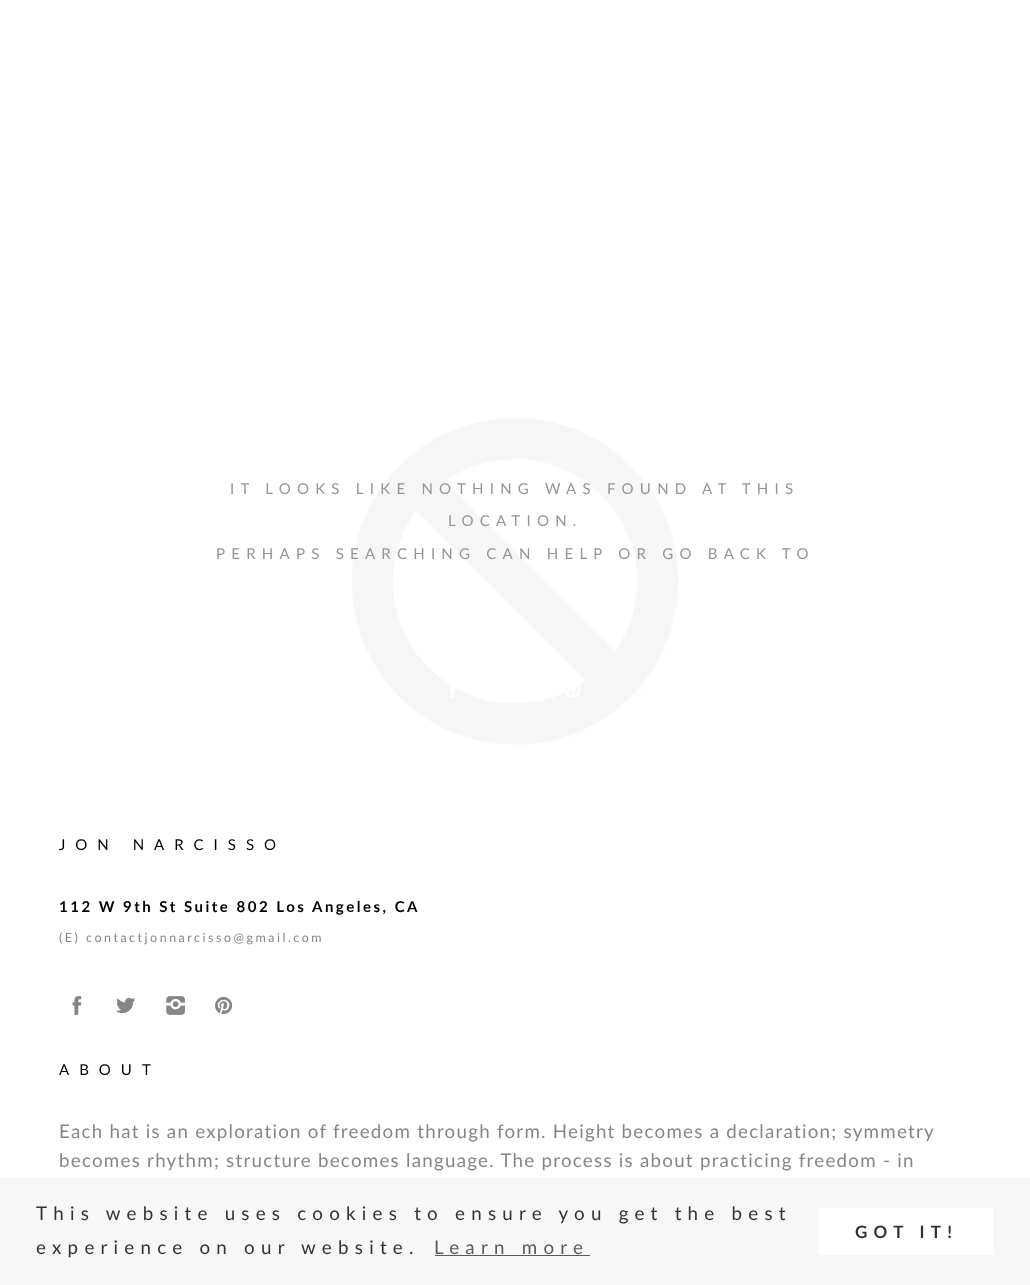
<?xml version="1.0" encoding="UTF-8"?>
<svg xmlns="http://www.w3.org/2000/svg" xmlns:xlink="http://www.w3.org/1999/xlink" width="1030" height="1285">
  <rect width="100%" height="100%" fill="#ffffff" />
  <image x="352" y="418" width="326" height="362" xlink:href="image1.png" />
  <image x="449" y="686" width="7" height="13" xlink:href="image2.png" />
  <image x="565" y="685" width="16" height="13" xlink:href="image3.png" />
  <image x="72" y="996" width="10" height="19" xlink:href="image4.png" />
  <image x="116" y="997" width="19" height="17" xlink:href="image5.png" />
  <image x="166" y="996" width="19" height="19" xlink:href="image6.png" />
  <image x="215" y="996" width="18" height="19" xlink:href="image7.png" />
  <rect y="1178" width="1030" height="107" fill="#f7f7f7" />
  <rect x="435" y="1255" width="155" height="1" fill="#5a5a5a" />
  <rect x="819" y="1208" width="175" height="47" fill="#ffffff" />
  <text x="230" y="494" style="font-family: Lato; font-size: 15px; letter-spacing: 6.25px; fill: #959595">IT LOOKS LIKE NOTHING WAS FOUND AT THIS</text>
  <text x="448" y="526" style="font-family: Lato; font-size: 15px; letter-spacing: 6.25px; fill: #959595">LOCATION.</text>
  <text x="216" y="559" style="font-family: Lato; font-size: 15px; letter-spacing: 6.25px; fill: #959595">PERHAPS SEARCHING CAN HELP OR GO BACK TO</text>
  <text x="59" y="850" style="font-family: Lato; font-size: 15px; letter-spacing: 10px; fill: #000000">JON NARCISSO</text>
  <text x="59" y="912" style="font-family: Lato; font-size: 15px; font-weight: bold; letter-spacing: 2.5px; fill: #000000">112 W 9th St Suite 802 Los Angeles, CA</text>
  <text x="59" y="942" style="font-family: Lato; font-size: 12.5px; letter-spacing: 2.5px; fill: #868686">(E) contactjonnarcisso@gmail.com</text>
  <text x="59" y="1075" style="font-family: Lato; font-size: 15px; letter-spacing: 10px; fill: #000000">ABOUT</text>
  <text x="59" y="1138" style="font-family: Lato; font-size: 18.75px; letter-spacing: 1.25px; fill: #868686">Each hat is an exploration of freedom through form. Height becomes a declaration; symmetry</text>
  <text x="59" y="1167" style="font-family: Lato; font-size: 18.75px; letter-spacing: 1.25px; fill: #868686">becomes rhythm; structure becomes language. The process is about practicing freedom - in</text>
  <text x="36" y="1220" style="font-family: Lato; font-size: 18.75px; letter-spacing: 6.25px; fill: #333333">This website uses cookies to ensure you get the best</text>
  <text x="36" y="1254" style="font-family: Lato; font-size: 18.75px; letter-spacing: 6.25px; fill: #333333">experience on our website.</text>
  <text x="434" y="1254" style="font-family: Lato; font-size: 18.75px; letter-spacing: 6.25px; fill: #5a5a5a">Learn more</text>
  <text x="855" y="1238" style="font-family: Lato; font-size: 17px; font-weight: bold; letter-spacing: 6.25px; fill: #333333">GOT IT!</text>
</svg>
